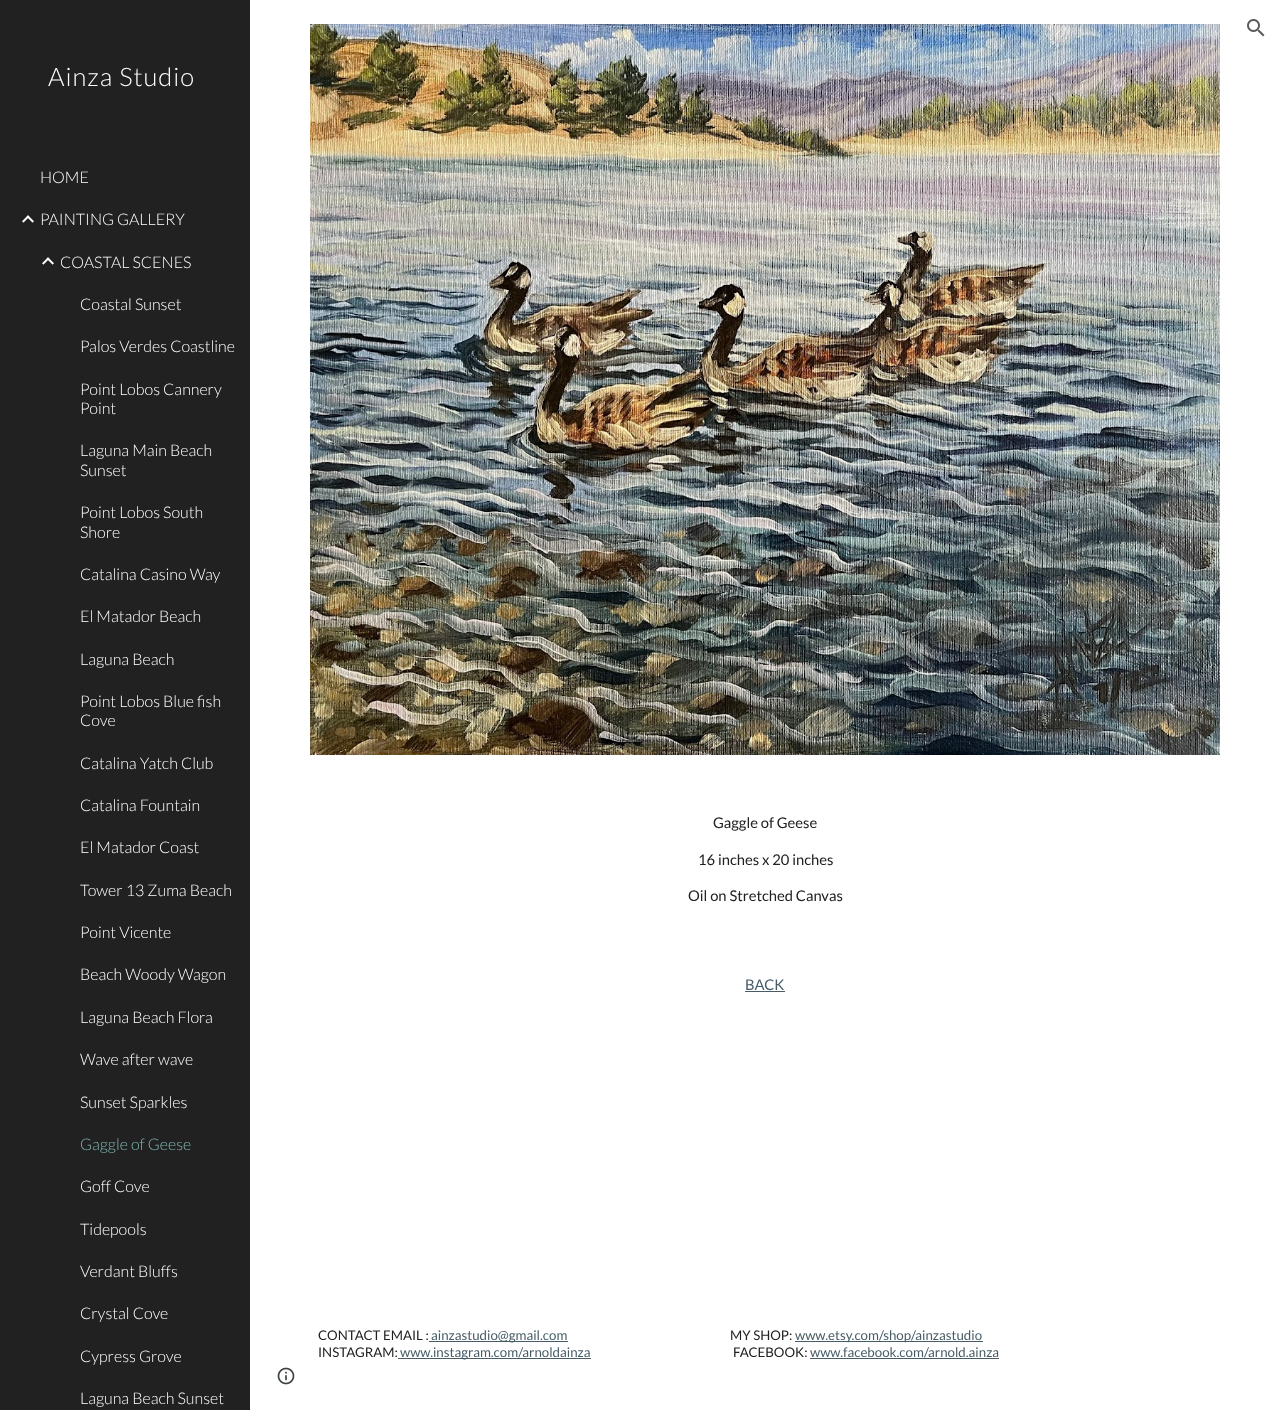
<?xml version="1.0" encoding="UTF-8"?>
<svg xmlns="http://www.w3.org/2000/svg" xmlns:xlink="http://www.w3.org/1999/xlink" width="1280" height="1410">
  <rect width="100%" height="100%" fill="#ffffff" />
  <image x="1247" y="19" width="18" height="18" xlink:href="image1.png" />
  <rect width="250" height="1410" fill="#212121" />
  <image x="22" y="215" width="12" height="8" xlink:href="image2.png" />
  <image x="42" y="257" width="12" height="8" xlink:href="image2.png" />
  <image x="310" y="24" width="910" height="731" xlink:href="image3.png" />
  <rect x="745" y="991" width="40" height="1" fill="#475c66" />
  <rect x="429" y="1341" width="139" height="1" fill="#475c66" />
  <rect x="795" y="1341" width="188" height="1" fill="#475c66" />
  <rect x="398" y="1358" width="193" height="1" fill="#475c66" />
  <rect x="810" y="1358" width="189" height="1" fill="#475c66" />
  <image x="277" y="1367" width="18" height="18" xlink:href="image4.png" />
  <text x="764" y="42" style="font-family: Google Sans; font-size: 14px; font-weight: 500; letter-spacing: 0.1px; fill: #7997bc">Skip to navigation</text>
  <text x="48" y="86" style="font-family: Lato; font-size: 25.5px; font-weight: 300; letter-spacing: 1px; fill: #ffffff">Ainza Studio</text>
  <text x="40" y="183" style="font-family: Lato; font-size: 16px; font-weight: 300; fill: #ffffff">HOME</text>
  <text x="40" y="225" style="font-family: Lato; font-size: 16px; font-weight: 300; fill: #ffffff">PAINTING GALLERY</text>
  <text x="60" y="268" style="font-family: Lato; font-size: 16px; font-weight: 300; fill: #ffffff">COASTAL SCENES</text>
  <text x="80" y="310" style="font-family: Lato; font-size: 16px; font-weight: 300; fill: #ffffff">Coastal Sunset</text>
  <text x="80" y="352" style="font-family: Lato; font-size: 16px; font-weight: 300; fill: #ffffff">Palos Verdes Coastline</text>
  <text x="80" y="395" style="font-family: Lato; font-size: 16px; font-weight: 300; fill: #ffffff">Point Lobos Cannery</text>
  <text x="80" y="414" style="font-family: Lato; font-size: 16px; font-weight: 300; fill: #ffffff">Point</text>
  <text x="80" y="456" style="font-family: Lato; font-size: 16px; font-weight: 300; fill: #ffffff">Laguna Main Beach</text>
  <text x="80" y="476" style="font-family: Lato; font-size: 16px; font-weight: 300; fill: #ffffff">Sunset</text>
  <text x="80" y="518" style="font-family: Lato; font-size: 16px; font-weight: 300; fill: #ffffff">Point Lobos South</text>
  <text x="80" y="538" style="font-family: Lato; font-size: 16px; font-weight: 300; fill: #ffffff">Shore</text>
  <text x="80" y="580" style="font-family: Lato; font-size: 16px; font-weight: 300; fill: #ffffff">Catalina Casino Way</text>
  <text x="80" y="622" style="font-family: Lato; font-size: 16px; font-weight: 300; fill: #ffffff">El Matador Beach</text>
  <text x="80" y="665" style="font-family: Lato; font-size: 16px; font-weight: 300; fill: #ffffff">Laguna Beach</text>
  <text x="80" y="707" style="font-family: Lato; font-size: 16px; font-weight: 300; fill: #ffffff">Point Lobos Blue fish</text>
  <text x="80" y="726" style="font-family: Lato; font-size: 16px; font-weight: 300; fill: #ffffff">Cove</text>
  <text x="80" y="769" style="font-family: Lato; font-size: 16px; font-weight: 300; fill: #ffffff">Catalina Yatch Club</text>
  <text x="80" y="811" style="font-family: Lato; font-size: 16px; font-weight: 300; fill: #ffffff">Catalina Fountain</text>
  <text x="80" y="853" style="font-family: Lato; font-size: 16px; font-weight: 300; fill: #ffffff">El Matador Coast</text>
  <text x="80" y="896" style="font-family: Lato; font-size: 16px; font-weight: 300; fill: #ffffff">Tower 13 Zuma Beach</text>
  <text x="80" y="938" style="font-family: Lato; font-size: 16px; font-weight: 300; fill: #ffffff">Point Vicente</text>
  <text x="80" y="980" style="font-family: Lato; font-size: 16px; font-weight: 300; fill: #ffffff">Beach Woody Wagon</text>
  <text x="80" y="1023" style="font-family: Lato; font-size: 16px; font-weight: 300; fill: #ffffff">Laguna Beach Flora</text>
  <text x="80" y="1065" style="font-family: Lato; font-size: 16px; font-weight: 300; fill: #ffffff">Wave after wave</text>
  <text x="80" y="1108" style="font-family: Lato; font-size: 16px; font-weight: 300; fill: #ffffff">Sunset Sparkles</text>
  <text x="80" y="1150" style="font-family: Lato; font-size: 16px; font-weight: 300; fill: #7db6b1">Gaggle of Geese</text>
  <text x="80" y="1192" style="font-family: Lato; font-size: 16px; font-weight: 300; fill: #ffffff">Goff Cove</text>
  <text x="80" y="1235" style="font-family: Lato; font-size: 16px; font-weight: 300; fill: #ffffff">Tidepools</text>
  <text x="80" y="1277" style="font-family: Lato; font-size: 16px; font-weight: 300; fill: #ffffff">Verdant Bluffs</text>
  <text x="80" y="1319" style="font-family: Lato; font-size: 16px; font-weight: 300; fill: #ffffff">Crystal Cove</text>
  <text x="80" y="1362" style="font-family: Lato; font-size: 16px; font-weight: 300; fill: #ffffff">Cypress Grove</text>
  <text x="80" y="1404" style="font-family: Lato; font-size: 16px; font-weight: 300; fill: #ffffff">Laguna Beach Sunset</text>
  <text x="713" y="828" style="font-family: Lato; font-size: 14.75px; fill: #212121">Gaggle of Geese</text>
  <text x="698" y="865" style="font-family: Lato; font-size: 14.75px; fill: #212121">16 inches x 20 inches</text>
  <text x="688" y="901" style="font-family: Lato; font-size: 14.75px; fill: #212121">Oil on Stretched Canvas</text>
  <text x="745" y="990" style="font-family: Lato; font-size: 14.75px; fill: #475c66">BACK</text>
  <text x="318" y="1340" style="font-family: Lato; font-size: 13.3px; fill: #212121">CONTACT EMAIL :</text>
  <text x="431" y="1340" style="font-family: Lato; font-size: 13.3px; fill: #475c66">ainzastudio@gmail.com</text>
  <text x="730" y="1340" style="font-family: Lato; font-size: 13.3px; fill: #212121">MY SHOP:</text>
  <text x="795" y="1340" style="font-family: Lato; font-size: 13.3px; fill: #475c66">www.etsy.com/shop/ainzastudio</text>
  <text x="318" y="1357" style="font-family: Lato; font-size: 13.3px; fill: #212121">INSTAGRAM:</text>
  <text x="400" y="1357" style="font-family: Lato; font-size: 13.3px; fill: #475c66">www.instagram.com/arnoldainza</text>
  <text x="733" y="1357" style="font-family: Lato; font-size: 13.3px; fill: #212121">FACEBOOK:</text>
  <text x="810" y="1357" style="font-family: Lato; font-size: 13.3px; fill: #475c66">www.facebook.com/arnold.ainza</text>
</svg>
